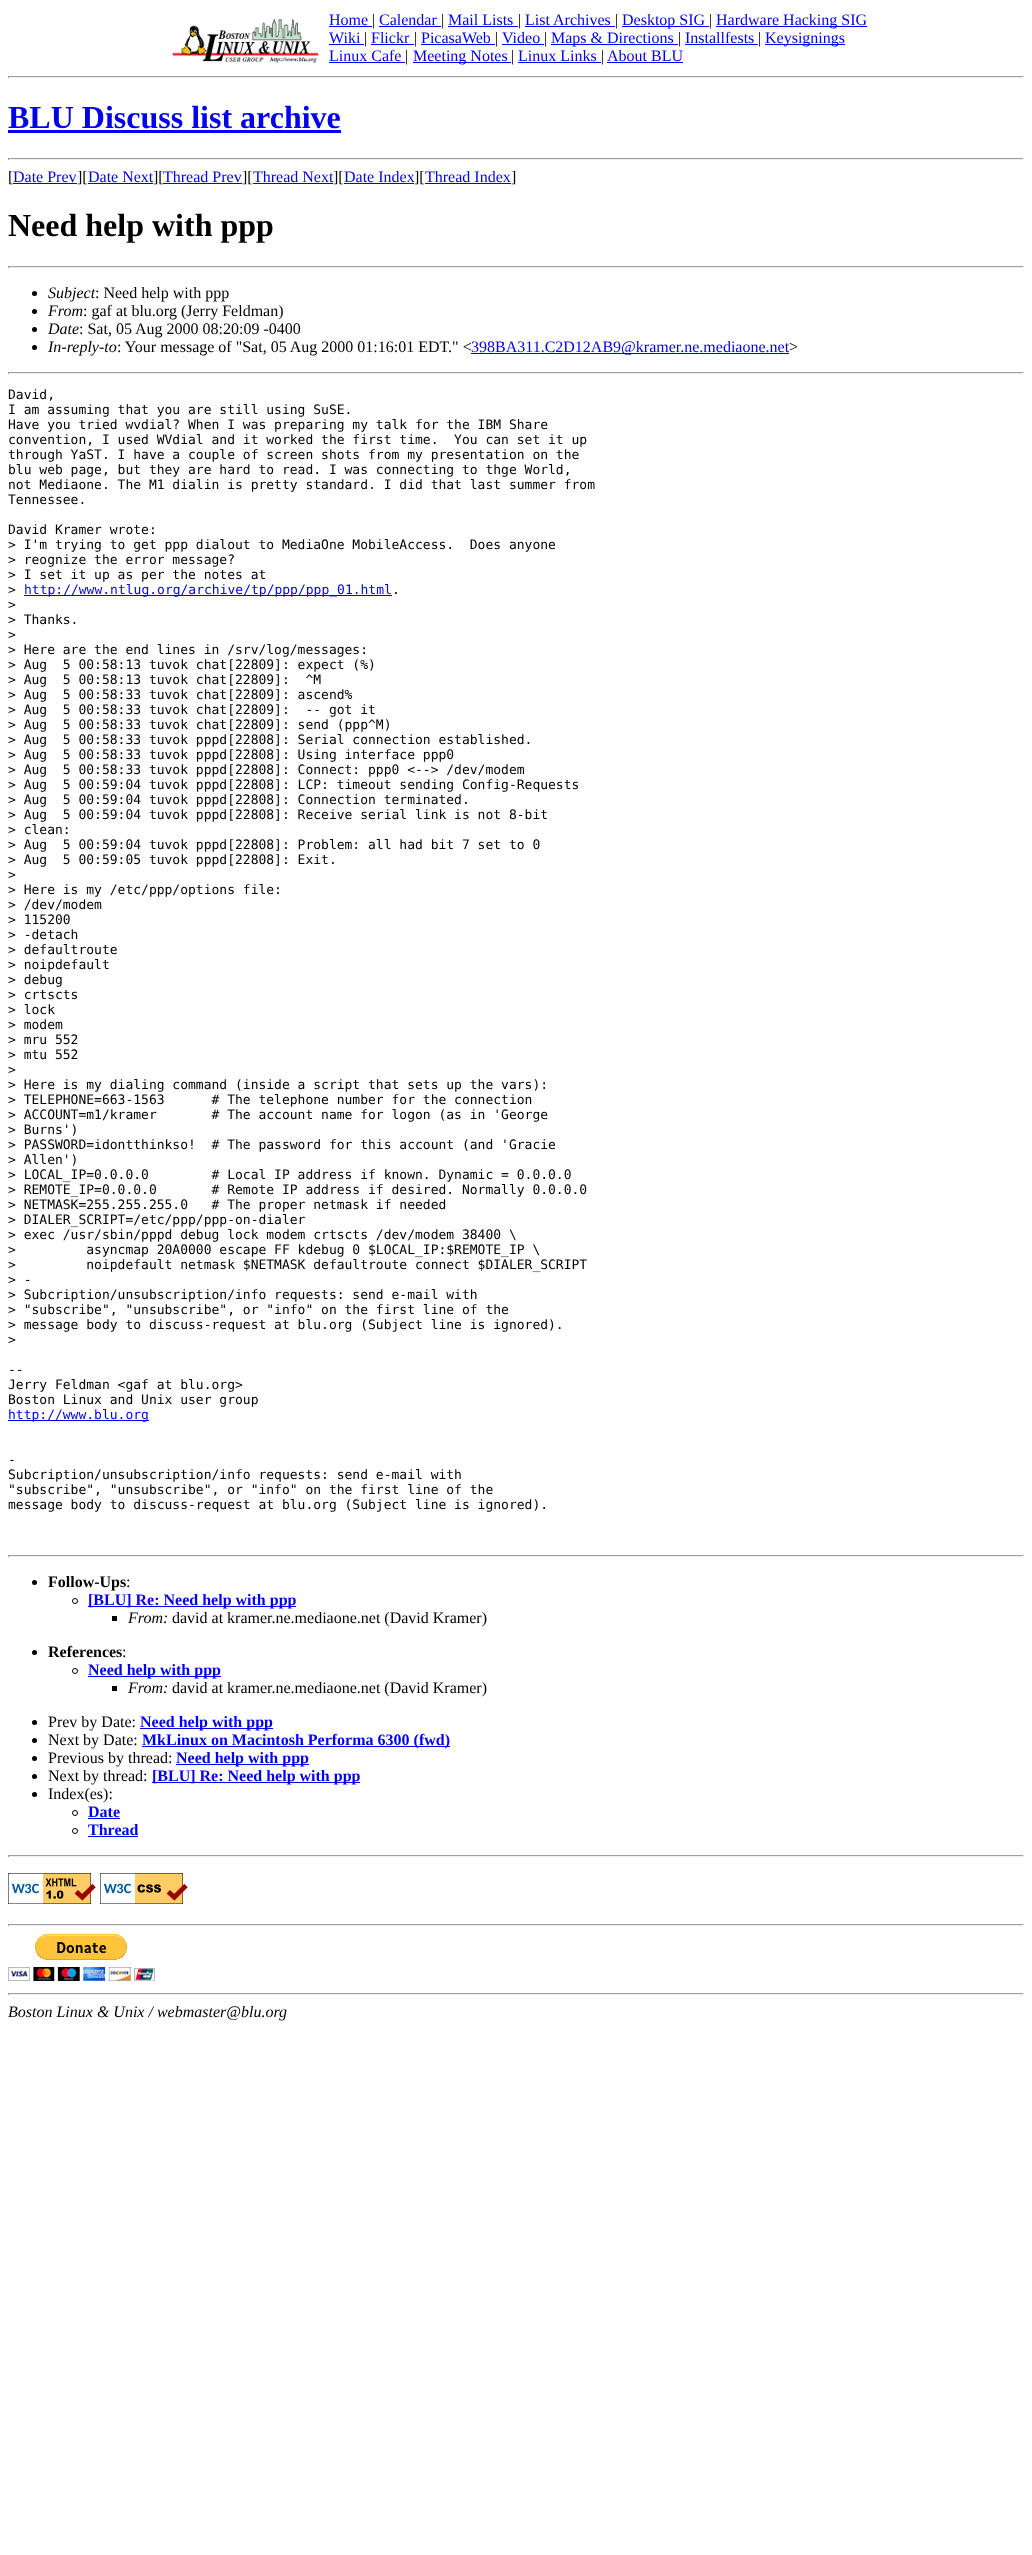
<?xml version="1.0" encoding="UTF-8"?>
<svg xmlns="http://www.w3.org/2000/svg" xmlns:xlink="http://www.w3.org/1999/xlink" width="1032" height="2555">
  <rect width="100%" height="100%" fill="#ffffff" />
  <image x="172" y="19" width="147" height="44" xlink:href="image1.png" />
  <rect x="329" y="26" width="43" height="1" fill="#0000ee" />
  <rect x="379" y="26" width="62" height="1" fill="#0000ee" />
  <rect x="448" y="26" width="70" height="1" fill="#0000ee" />
  <rect x="525" y="26" width="90" height="1" fill="#0000ee" />
  <rect x="622" y="26" width="87" height="1" fill="#0000ee" />
  <rect x="716" y="26" width="151" height="1" fill="#0000ee" />
  <rect x="329" y="44" width="35" height="1" fill="#0000ee" />
  <rect x="371" y="44" width="43" height="1" fill="#0000ee" />
  <rect x="421" y="44" width="74" height="1" fill="#0000ee" />
  <rect x="502" y="44" width="42" height="1" fill="#0000ee" />
  <rect x="551" y="44" width="127" height="1" fill="#0000ee" />
  <rect x="685" y="44" width="73" height="1" fill="#0000ee" />
  <rect x="765" y="44" width="80" height="1" fill="#0000ee" />
  <rect x="329" y="62" width="76" height="1" fill="#0000ee" />
  <rect x="413" y="62" width="98" height="1" fill="#0000ee" />
  <rect x="518" y="62" width="83" height="1" fill="#0000ee" />
  <rect x="607" y="62" width="76" height="1" fill="#0000ee" />
  <rect x="8" y="76" width="1016" height="1" fill="#9f9f9f" />
  <rect x="1023" y="76" width="1" height="2" fill="#eeeeee" />
  <rect x="8" y="77" width="1016" height="1" fill="#eeeeee" />
  <rect x="8" y="76" width="1" height="2" fill="#9f9f9f" />
  <rect x="8" y="130" width="333" height="3" fill="#0000ee" />
  <rect x="8" y="158" width="1016" height="1" fill="#9f9f9f" />
  <rect x="1023" y="158" width="1" height="2" fill="#eeeeee" />
  <rect x="8" y="159" width="1016" height="1" fill="#eeeeee" />
  <rect x="8" y="158" width="1" height="2" fill="#9f9f9f" />
  <rect x="13" y="183" width="64" height="1" fill="#0000ee" />
  <rect x="88" y="183" width="65" height="1" fill="#0000ee" />
  <rect x="163" y="183" width="79" height="1" fill="#0000ee" />
  <rect x="253" y="183" width="80" height="1" fill="#0000ee" />
  <rect x="344" y="183" width="70" height="1" fill="#0000ee" />
  <rect x="425" y="183" width="86" height="1" fill="#0000ee" />
  <rect x="8" y="266" width="1016" height="1" fill="#9f9f9f" />
  <rect x="1023" y="266" width="1" height="2" fill="#eeeeee" />
  <rect x="8" y="267" width="1016" height="1" fill="#eeeeee" />
  <rect x="8" y="266" width="1" height="2" fill="#9f9f9f" />
  <circle cx="34.5" cy="293.5" r="2.5" fill="#000000" />
  <circle cx="34.5" cy="311.5" r="2.5" fill="#000000" />
  <circle cx="34.5" cy="329.5" r="2.5" fill="#000000" />
  <circle cx="34.5" cy="347.5" r="2.5" fill="#000000" />
  <rect x="471" y="353" width="318" height="1" fill="#0000ee" />
  <rect x="8" y="372" width="1016" height="1" fill="#9f9f9f" />
  <rect x="1023" y="372" width="1" height="2" fill="#eeeeee" />
  <rect x="8" y="373" width="1016" height="1" fill="#eeeeee" />
  <rect x="8" y="372" width="1" height="2" fill="#9f9f9f" />
  <rect x="24" y="595" width="368" height="1" fill="#0000ee" />
  <rect x="8" y="1420" width="141" height="1" fill="#0000ee" />
  <rect x="8" y="1555" width="1016" height="1" fill="#9f9f9f" />
  <rect x="1023" y="1555" width="1" height="2" fill="#eeeeee" />
  <rect x="8" y="1556" width="1016" height="1" fill="#eeeeee" />
  <rect x="8" y="1555" width="1" height="2" fill="#9f9f9f" />
  <circle cx="34.5" cy="1582.5" r="2.5" fill="#000000" />
  <circle cx="75" cy="1601" r="2.5" fill="none" stroke="#000000" />
  <rect x="88" y="1606" width="208" height="1" fill="#0000ee" />
  <rect x="112" y="1616" width="5" height="5" fill="#000000" />
  <circle cx="34.5" cy="1652.5" r="2.5" fill="#000000" />
  <circle cx="75" cy="1671" r="2.5" fill="none" stroke="#000000" />
  <rect x="88" y="1676" width="133" height="1" fill="#0000ee" />
  <rect x="112" y="1686" width="5" height="5" fill="#000000" />
  <circle cx="34.5" cy="1722.5" r="2.5" fill="#000000" />
  <rect x="140" y="1728" width="133" height="1" fill="#0000ee" />
  <circle cx="34.5" cy="1740.5" r="2.5" fill="#000000" />
  <rect x="142" y="1746" width="308" height="1" fill="#0000ee" />
  <circle cx="34.5" cy="1758.5" r="2.5" fill="#000000" />
  <rect x="176" y="1764" width="133" height="1" fill="#0000ee" />
  <circle cx="34.5" cy="1776.5" r="2.5" fill="#000000" />
  <rect x="152" y="1782" width="208" height="1" fill="#0000ee" />
  <circle cx="34.5" cy="1794.5" r="2.5" fill="#000000" />
  <circle cx="75" cy="1813" r="2.5" fill="none" stroke="#000000" />
  <rect x="88" y="1818" width="32" height="1" fill="#0000ee" />
  <circle cx="75" cy="1831" r="2.5" fill="none" stroke="#000000" />
  <rect x="88" y="1836" width="50" height="1" fill="#0000ee" />
  <rect x="8" y="1855" width="1016" height="1" fill="#9f9f9f" />
  <rect x="1023" y="1855" width="1" height="2" fill="#eeeeee" />
  <rect x="8" y="1856" width="1016" height="1" fill="#eeeeee" />
  <rect x="8" y="1855" width="1" height="2" fill="#9f9f9f" />
  <image x="8" y="1873" width="88" height="31" xlink:href="image2.png" />
  <image x="100" y="1873" width="88" height="31" xlink:href="image3.png" />
  <rect x="8" y="1924" width="1016" height="1" fill="#9f9f9f" />
  <rect x="1023" y="1924" width="1" height="2" fill="#eeeeee" />
  <rect x="8" y="1925" width="1016" height="1" fill="#eeeeee" />
  <rect x="8" y="1924" width="1" height="2" fill="#9f9f9f" />
  <image x="8" y="1934" width="147" height="47" xlink:href="image4.png" />
  <rect x="8" y="1993" width="1016" height="1" fill="#9f9f9f" />
  <rect x="1023" y="1993" width="1" height="2" fill="#eeeeee" />
  <rect x="8" y="1994" width="1016" height="1" fill="#eeeeee" />
  <rect x="8" y="1993" width="1" height="2" fill="#9f9f9f" />
  <text x="329" y="25" style="font-family: Liberation Serif; font-size: 16px; fill: #0000ee">Home</text>
  <text x="372" y="25" style="font-family: Liberation Serif; font-size: 16px; fill: #000000">|</text>
  <text x="379" y="25" style="font-family: Liberation Serif; font-size: 16px; fill: #0000ee">Calendar</text>
  <text x="441" y="25" style="font-family: Liberation Serif; font-size: 16px; fill: #000000">|</text>
  <text x="448" y="25" style="font-family: Liberation Serif; font-size: 16px; fill: #0000ee">Mail Lists</text>
  <text x="518" y="25" style="font-family: Liberation Serif; font-size: 16px; fill: #000000">|</text>
  <text x="525" y="25" style="font-family: Liberation Serif; font-size: 16px; fill: #0000ee">List Archives</text>
  <text x="615" y="25" style="font-family: Liberation Serif; font-size: 16px; fill: #000000">|</text>
  <text x="622" y="25" style="font-family: Liberation Serif; font-size: 16px; fill: #0000ee">Desktop SIG</text>
  <text x="709" y="25" style="font-family: Liberation Serif; font-size: 16px; fill: #000000">|</text>
  <text x="716" y="25" style="font-family: Liberation Serif; font-size: 16px; fill: #0000ee">Hardware Hacking SIG</text>
  <text x="329" y="43" style="font-family: Liberation Serif; font-size: 16px; fill: #0000ee">Wiki</text>
  <text x="364" y="43" style="font-family: Liberation Serif; font-size: 16px; fill: #000000">|</text>
  <text x="371" y="43" style="font-family: Liberation Serif; font-size: 16px; fill: #0000ee">Flickr</text>
  <text x="414" y="43" style="font-family: Liberation Serif; font-size: 16px; fill: #000000">|</text>
  <text x="421" y="43" style="font-family: Liberation Serif; font-size: 16px; fill: #0000ee">PicasaWeb</text>
  <text x="495" y="43" style="font-family: Liberation Serif; font-size: 16px; fill: #000000">|</text>
  <text x="502" y="43" style="font-family: Liberation Serif; font-size: 16px; fill: #0000ee">Video</text>
  <text x="544" y="43" style="font-family: Liberation Serif; font-size: 16px; fill: #000000">|</text>
  <text x="551" y="43" style="font-family: Liberation Serif; font-size: 16px; fill: #0000ee">Maps &amp; Directions</text>
  <text x="678" y="43" style="font-family: Liberation Serif; font-size: 16px; fill: #000000">|</text>
  <text x="685" y="43" style="font-family: Liberation Serif; font-size: 16px; fill: #0000ee">Installfests</text>
  <text x="758" y="43" style="font-family: Liberation Serif; font-size: 16px; fill: #000000">|</text>
  <text x="765" y="43" style="font-family: Liberation Serif; font-size: 16px; fill: #0000ee">Keysignings</text>
  <text x="329" y="61" style="font-family: Liberation Serif; font-size: 16px; fill: #0000ee">Linux Cafe</text>
  <text x="405" y="61" style="font-family: Liberation Serif; font-size: 16px; fill: #000000">|</text>
  <text x="413" y="61" style="font-family: Liberation Serif; font-size: 16px; fill: #0000ee">Meeting Notes</text>
  <text x="511" y="61" style="font-family: Liberation Serif; font-size: 16px; fill: #000000">|</text>
  <text x="518" y="61" style="font-family: Liberation Serif; font-size: 16px; fill: #0000ee">Linux Links</text>
  <text x="601" y="61" style="font-family: Liberation Serif; font-size: 16px; fill: #000000">|</text>
  <text x="607" y="61" style="font-family: Liberation Serif; font-size: 16px; fill: #0000ee">About BLU</text>
  <text x="8" y="128" style="font-family: Liberation Serif; font-size: 32px; font-weight: bold; fill: #0000ee">BLU Discuss list archive</text>
  <text x="8" y="182" style="font-family: Liberation Serif; font-size: 16px; fill: #000000">[</text>
  <text x="13" y="182" style="font-family: Liberation Serif; font-size: 16px; fill: #0000ee">Date Prev</text>
  <text x="77" y="182" style="font-family: Liberation Serif; font-size: 16px; fill: #000000">][</text>
  <text x="88" y="182" style="font-family: Liberation Serif; font-size: 16px; fill: #0000ee">Date Next</text>
  <text x="153" y="182" style="font-family: Liberation Serif; font-size: 16px; fill: #000000">][</text>
  <text x="163" y="182" style="font-family: Liberation Serif; font-size: 16px; fill: #0000ee">Thread Prev</text>
  <text x="242" y="182" style="font-family: Liberation Serif; font-size: 16px; fill: #000000">][</text>
  <text x="253" y="182" style="font-family: Liberation Serif; font-size: 16px; fill: #0000ee">Thread Next</text>
  <text x="333" y="182" style="font-family: Liberation Serif; font-size: 16px; fill: #000000">][</text>
  <text x="344" y="182" style="font-family: Liberation Serif; font-size: 16px; fill: #0000ee">Date Index</text>
  <text x="414" y="182" style="font-family: Liberation Serif; font-size: 16px; fill: #000000">][</text>
  <text x="425" y="182" style="font-family: Liberation Serif; font-size: 16px; fill: #0000ee">Thread Index</text>
  <text x="511" y="182" style="font-family: Liberation Serif; font-size: 16px; fill: #000000">]</text>
  <text x="8" y="236" style="font-family: Liberation Serif; font-size: 32px; font-weight: bold; fill: #000000">Need help with ppp</text>
  <text x="48" y="298" style="font-family: Liberation Serif; font-size: 16px; font-style: italic; fill: #000000">Subject</text>
  <text x="95" y="298" style="font-family: Liberation Serif; font-size: 16px; fill: #000000">: Need help with ppp</text>
  <text x="48" y="316" style="font-family: Liberation Serif; font-size: 16px; font-style: italic; fill: #000000">From</text>
  <text x="83" y="316" style="font-family: Liberation Serif; font-size: 16px; fill: #000000">: gaf at blu.org (Jerry Feldman)</text>
  <text x="48" y="334" style="font-family: Liberation Serif; font-size: 16px; font-style: italic; fill: #000000">Date</text>
  <text x="79" y="334" style="font-family: Liberation Serif; font-size: 16px; fill: #000000">: Sat, 05 Aug 2000 08:20:09 -0400</text>
  <text x="48" y="352" style="font-family: Liberation Serif; font-size: 16px; font-style: italic; fill: #000000">In-reply-to</text>
  <text x="117" y="352" style="font-family: Liberation Serif; font-size: 16px; fill: #000000">: Your message of "Sat, 05 Aug 2000 01:16:01 EDT." &lt;</text>
  <text x="471" y="352" style="font-family: Liberation Serif; font-size: 16px; fill: #0000ee">398BA311.C2D12AB9@kramer.ne.mediaone.net</text>
  <text x="789" y="352" style="font-family: Liberation Serif; font-size: 16px; fill: #000000">&gt;</text>
  <text x="8" y="399" style="font-family: DejaVu Sans Mono; font-size: 13px; fill: #000000">David,</text>
  <text x="8" y="414" style="font-family: DejaVu Sans Mono; font-size: 13px; fill: #000000">I am assuming that you are still using SuSE.</text>
  <text x="8" y="429" style="font-family: DejaVu Sans Mono; font-size: 13px; fill: #000000">Have you tried wvdial? When I was preparing my talk for the IBM Share</text>
  <text x="8" y="444" style="font-family: DejaVu Sans Mono; font-size: 13px; fill: #000000" xml:space="preserve">convention, I used WVdial and it worked the first time.  You can set it up</text>
  <text x="8" y="459" style="font-family: DejaVu Sans Mono; font-size: 13px; fill: #000000">through YaST. I have a couple of screen shots from my presentation on the</text>
  <text x="8" y="474" style="font-family: DejaVu Sans Mono; font-size: 13px; fill: #000000">blu web page, but they are hard to read. I was connecting to thge World,</text>
  <text x="8" y="489" style="font-family: DejaVu Sans Mono; font-size: 13px; fill: #000000">not Mediaone. The M1 dialin is pretty standard. I did that last summer from</text>
  <text x="8" y="504" style="font-family: DejaVu Sans Mono; font-size: 13px; fill: #000000">Tennessee.</text>
  <text x="8" y="534" style="font-family: DejaVu Sans Mono; font-size: 13px; fill: #000000">David Kramer wrote:</text>
  <text x="8" y="549" style="font-family: DejaVu Sans Mono; font-size: 13px; fill: #000000" xml:space="preserve">&gt; I'm trying to get ppp dialout to MediaOne MobileAccess.  Does anyone</text>
  <text x="8" y="564" style="font-family: DejaVu Sans Mono; font-size: 13px; fill: #000000">&gt; reognize the error message?</text>
  <text x="8" y="579" style="font-family: DejaVu Sans Mono; font-size: 13px; fill: #000000">&gt; I set it up as per the notes at</text>
  <text x="8" y="594" style="font-family: DejaVu Sans Mono; font-size: 13px; fill: #000000">&gt;</text>
  <text x="24" y="594" style="font-family: DejaVu Sans Mono; font-size: 13px; fill: #0000ee">http://www.ntlug.org/archive/tp/ppp/ppp_01.html</text>
  <text x="392" y="594" style="font-family: DejaVu Sans Mono; font-size: 13px; fill: #000000">.</text>
  <text x="8" y="609" style="font-family: DejaVu Sans Mono; font-size: 13px; fill: #000000">&gt;</text>
  <text x="8" y="624" style="font-family: DejaVu Sans Mono; font-size: 13px; fill: #000000">&gt; Thanks.</text>
  <text x="8" y="639" style="font-family: DejaVu Sans Mono; font-size: 13px; fill: #000000">&gt;</text>
  <text x="8" y="654" style="font-family: DejaVu Sans Mono; font-size: 13px; fill: #000000">&gt; Here are the end lines in /srv/log/messages:</text>
  <text x="8" y="669" style="font-family: DejaVu Sans Mono; font-size: 13px; fill: #000000" xml:space="preserve">&gt; Aug  5 00:58:13 tuvok chat[22809]: expect (%)</text>
  <text x="8" y="684" style="font-family: DejaVu Sans Mono; font-size: 13px; fill: #000000" xml:space="preserve">&gt; Aug  5 00:58:13 tuvok chat[22809]:  ^M</text>
  <text x="8" y="699" style="font-family: DejaVu Sans Mono; font-size: 13px; fill: #000000" xml:space="preserve">&gt; Aug  5 00:58:33 tuvok chat[22809]: ascend%</text>
  <text x="8" y="714" style="font-family: DejaVu Sans Mono; font-size: 13px; fill: #000000" xml:space="preserve">&gt; Aug  5 00:58:33 tuvok chat[22809]:  -- got it</text>
  <text x="8" y="729" style="font-family: DejaVu Sans Mono; font-size: 13px; fill: #000000" xml:space="preserve">&gt; Aug  5 00:58:33 tuvok chat[22809]: send (ppp^M)</text>
  <text x="8" y="744" style="font-family: DejaVu Sans Mono; font-size: 13px; fill: #000000" xml:space="preserve">&gt; Aug  5 00:58:33 tuvok pppd[22808]: Serial connection established.</text>
  <text x="8" y="759" style="font-family: DejaVu Sans Mono; font-size: 13px; fill: #000000" xml:space="preserve">&gt; Aug  5 00:58:33 tuvok pppd[22808]: Using interface ppp0</text>
  <text x="8" y="774" style="font-family: DejaVu Sans Mono; font-size: 13px; fill: #000000" xml:space="preserve">&gt; Aug  5 00:58:33 tuvok pppd[22808]: Connect: ppp0 &lt;--&gt; /dev/modem</text>
  <text x="8" y="789" style="font-family: DejaVu Sans Mono; font-size: 13px; fill: #000000" xml:space="preserve">&gt; Aug  5 00:59:04 tuvok pppd[22808]: LCP: timeout sending Config-Requests</text>
  <text x="8" y="804" style="font-family: DejaVu Sans Mono; font-size: 13px; fill: #000000" xml:space="preserve">&gt; Aug  5 00:59:04 tuvok pppd[22808]: Connection terminated.</text>
  <text x="8" y="819" style="font-family: DejaVu Sans Mono; font-size: 13px; fill: #000000" xml:space="preserve">&gt; Aug  5 00:59:04 tuvok pppd[22808]: Receive serial link is not 8-bit</text>
  <text x="8" y="834" style="font-family: DejaVu Sans Mono; font-size: 13px; fill: #000000">&gt; clean:</text>
  <text x="8" y="849" style="font-family: DejaVu Sans Mono; font-size: 13px; fill: #000000" xml:space="preserve">&gt; Aug  5 00:59:04 tuvok pppd[22808]: Problem: all had bit 7 set to 0</text>
  <text x="8" y="864" style="font-family: DejaVu Sans Mono; font-size: 13px; fill: #000000" xml:space="preserve">&gt; Aug  5 00:59:05 tuvok pppd[22808]: Exit.</text>
  <text x="8" y="879" style="font-family: DejaVu Sans Mono; font-size: 13px; fill: #000000">&gt;</text>
  <text x="8" y="894" style="font-family: DejaVu Sans Mono; font-size: 13px; fill: #000000">&gt; Here is my /etc/ppp/options file:</text>
  <text x="8" y="909" style="font-family: DejaVu Sans Mono; font-size: 13px; fill: #000000">&gt; /dev/modem</text>
  <text x="8" y="924" style="font-family: DejaVu Sans Mono; font-size: 13px; fill: #000000">&gt; 115200</text>
  <text x="8" y="939" style="font-family: DejaVu Sans Mono; font-size: 13px; fill: #000000">&gt; -detach</text>
  <text x="8" y="954" style="font-family: DejaVu Sans Mono; font-size: 13px; fill: #000000">&gt; defaultroute</text>
  <text x="8" y="969" style="font-family: DejaVu Sans Mono; font-size: 13px; fill: #000000">&gt; noipdefault</text>
  <text x="8" y="984" style="font-family: DejaVu Sans Mono; font-size: 13px; fill: #000000">&gt; debug</text>
  <text x="8" y="999" style="font-family: DejaVu Sans Mono; font-size: 13px; fill: #000000">&gt; crtscts</text>
  <text x="8" y="1014" style="font-family: DejaVu Sans Mono; font-size: 13px; fill: #000000">&gt; lock</text>
  <text x="8" y="1029" style="font-family: DejaVu Sans Mono; font-size: 13px; fill: #000000">&gt; modem</text>
  <text x="8" y="1044" style="font-family: DejaVu Sans Mono; font-size: 13px; fill: #000000">&gt; mru 552</text>
  <text x="8" y="1059" style="font-family: DejaVu Sans Mono; font-size: 13px; fill: #000000">&gt; mtu 552</text>
  <text x="8" y="1074" style="font-family: DejaVu Sans Mono; font-size: 13px; fill: #000000">&gt;</text>
  <text x="8" y="1089" style="font-family: DejaVu Sans Mono; font-size: 13px; fill: #000000">&gt; Here is my dialing command (inside a script that sets up the vars):</text>
  <text x="8" y="1104" style="font-family: DejaVu Sans Mono; font-size: 13px; fill: #000000" xml:space="preserve">&gt; TELEPHONE=663-1563      # The telephone number for the connection</text>
  <text x="8" y="1119" style="font-family: DejaVu Sans Mono; font-size: 13px; fill: #000000" xml:space="preserve">&gt; ACCOUNT=m1/kramer       # The account name for logon (as in 'George</text>
  <text x="8" y="1134" style="font-family: DejaVu Sans Mono; font-size: 13px; fill: #000000">&gt; Burns')</text>
  <text x="8" y="1149" style="font-family: DejaVu Sans Mono; font-size: 13px; fill: #000000" xml:space="preserve">&gt; PASSWORD=idontthinkso!  # The password for this account (and 'Gracie</text>
  <text x="8" y="1164" style="font-family: DejaVu Sans Mono; font-size: 13px; fill: #000000">&gt; Allen')</text>
  <text x="8" y="1179" style="font-family: DejaVu Sans Mono; font-size: 13px; fill: #000000" xml:space="preserve">&gt; LOCAL_IP=0.0.0.0        # Local IP address if known. Dynamic = 0.0.0.0</text>
  <text x="8" y="1194" style="font-family: DejaVu Sans Mono; font-size: 13px; fill: #000000" xml:space="preserve">&gt; REMOTE_IP=0.0.0.0       # Remote IP address if desired. Normally 0.0.0.0</text>
  <text x="8" y="1209" style="font-family: DejaVu Sans Mono; font-size: 13px; fill: #000000" xml:space="preserve">&gt; NETMASK=255.255.255.0   # The proper netmask if needed</text>
  <text x="8" y="1224" style="font-family: DejaVu Sans Mono; font-size: 13px; fill: #000000">&gt; DIALER_SCRIPT=/etc/ppp/ppp-on-dialer</text>
  <text x="8" y="1239" style="font-family: DejaVu Sans Mono; font-size: 13px; fill: #000000">&gt; exec /usr/sbin/pppd debug lock modem crtscts /dev/modem 38400 \</text>
  <text x="8" y="1254" style="font-family: DejaVu Sans Mono; font-size: 13px; fill: #000000" xml:space="preserve">&gt;         asyncmap 20A0000 escape FF kdebug 0 $LOCAL_IP:$REMOTE_IP \</text>
  <text x="8" y="1269" style="font-family: DejaVu Sans Mono; font-size: 13px; fill: #000000" xml:space="preserve">&gt;         noipdefault netmask $NETMASK defaultroute connect $DIALER_SCRIPT</text>
  <text x="8" y="1284" style="font-family: DejaVu Sans Mono; font-size: 13px; fill: #000000">&gt; -</text>
  <text x="8" y="1299" style="font-family: DejaVu Sans Mono; font-size: 13px; fill: #000000">&gt; Subcription/unsubscription/info requests: send e-mail with</text>
  <text x="8" y="1314" style="font-family: DejaVu Sans Mono; font-size: 13px; fill: #000000">&gt; "subscribe", "unsubscribe", or "info" on the first line of the</text>
  <text x="8" y="1329" style="font-family: DejaVu Sans Mono; font-size: 13px; fill: #000000">&gt; message body to discuss-request at blu.org (Subject line is ignored).</text>
  <text x="8" y="1344" style="font-family: DejaVu Sans Mono; font-size: 13px; fill: #000000">&gt;</text>
  <text x="8" y="1374" style="font-family: DejaVu Sans Mono; font-size: 13px; fill: #000000">--</text>
  <text x="8" y="1389" style="font-family: DejaVu Sans Mono; font-size: 13px; fill: #000000">Jerry Feldman &lt;gaf at blu.org&gt;</text>
  <text x="8" y="1404" style="font-family: DejaVu Sans Mono; font-size: 13px; fill: #000000">Boston Linux and Unix user group</text>
  <text x="8" y="1419" style="font-family: DejaVu Sans Mono; font-size: 13px; fill: #0000ee">http://www.blu.org</text>
  <text x="8" y="1464" style="font-family: DejaVu Sans Mono; font-size: 13px; fill: #000000">-</text>
  <text x="8" y="1479" style="font-family: DejaVu Sans Mono; font-size: 13px; fill: #000000">Subcription/unsubscription/info requests: send e-mail with</text>
  <text x="8" y="1494" style="font-family: DejaVu Sans Mono; font-size: 13px; fill: #000000">"subscribe", "unsubscribe", or "info" on the first line of the</text>
  <text x="8" y="1509" style="font-family: DejaVu Sans Mono; font-size: 13px; fill: #000000">message body to discuss-request at blu.org (Subject line is ignored).</text>
  <text x="48" y="1587" style="font-family: Liberation Serif; font-size: 16px; font-weight: bold; fill: #000000">Follow-Ups</text>
  <text x="126" y="1587" style="font-family: Liberation Serif; font-size: 16px; fill: #000000">:</text>
  <text x="88" y="1605" style="font-family: Liberation Serif; font-size: 16px; font-weight: bold; fill: #0000ee">[BLU] Re: Need help with ppp</text>
  <text x="128" y="1623" style="font-family: Liberation Serif; font-size: 16px; font-style: italic; fill: #000000">From:</text>
  <text x="172" y="1623" style="font-family: Liberation Serif; font-size: 16px; fill: #000000">david at kramer.ne.mediaone.net (David Kramer)</text>
  <text x="48" y="1657" style="font-family: Liberation Serif; font-size: 16px; font-weight: bold; fill: #000000">References</text>
  <text x="122" y="1657" style="font-family: Liberation Serif; font-size: 16px; fill: #000000">:</text>
  <text x="88" y="1675" style="font-family: Liberation Serif; font-size: 16px; font-weight: bold; fill: #0000ee">Need help with ppp</text>
  <text x="128" y="1693" style="font-family: Liberation Serif; font-size: 16px; font-style: italic; fill: #000000">From:</text>
  <text x="172" y="1693" style="font-family: Liberation Serif; font-size: 16px; fill: #000000">david at kramer.ne.mediaone.net (David Kramer)</text>
  <text x="48" y="1727" style="font-family: Liberation Serif; font-size: 16px; fill: #000000">Prev by Date:</text>
  <text x="140" y="1727" style="font-family: Liberation Serif; font-size: 16px; font-weight: bold; fill: #0000ee">Need help with ppp</text>
  <text x="48" y="1745" style="font-family: Liberation Serif; font-size: 16px; fill: #000000">Next by Date:</text>
  <text x="142" y="1745" style="font-family: Liberation Serif; font-size: 16px; font-weight: bold; fill: #0000ee">MkLinux on Macintosh Performa 6300 (fwd)</text>
  <text x="48" y="1763" style="font-family: Liberation Serif; font-size: 16px; fill: #000000">Previous by thread:</text>
  <text x="176" y="1763" style="font-family: Liberation Serif; font-size: 16px; font-weight: bold; fill: #0000ee">Need help with ppp</text>
  <text x="48" y="1781" style="font-family: Liberation Serif; font-size: 16px; fill: #000000">Next by thread:</text>
  <text x="152" y="1781" style="font-family: Liberation Serif; font-size: 16px; font-weight: bold; fill: #0000ee">[BLU] Re: Need help with ppp</text>
  <text x="48" y="1799" style="font-family: Liberation Serif; font-size: 16px; fill: #000000">Index(es):</text>
  <text x="88" y="1817" style="font-family: Liberation Serif; font-size: 16px; font-weight: bold; fill: #0000ee">Date</text>
  <text x="88" y="1835" style="font-family: Liberation Serif; font-size: 16px; font-weight: bold; fill: #0000ee">Thread</text>
  <text x="8" y="2017" style="font-family: Liberation Serif; font-size: 16px; font-style: italic; fill: #000000">Boston Linux &amp; Unix / webmaster@blu.org</text>
</svg>
